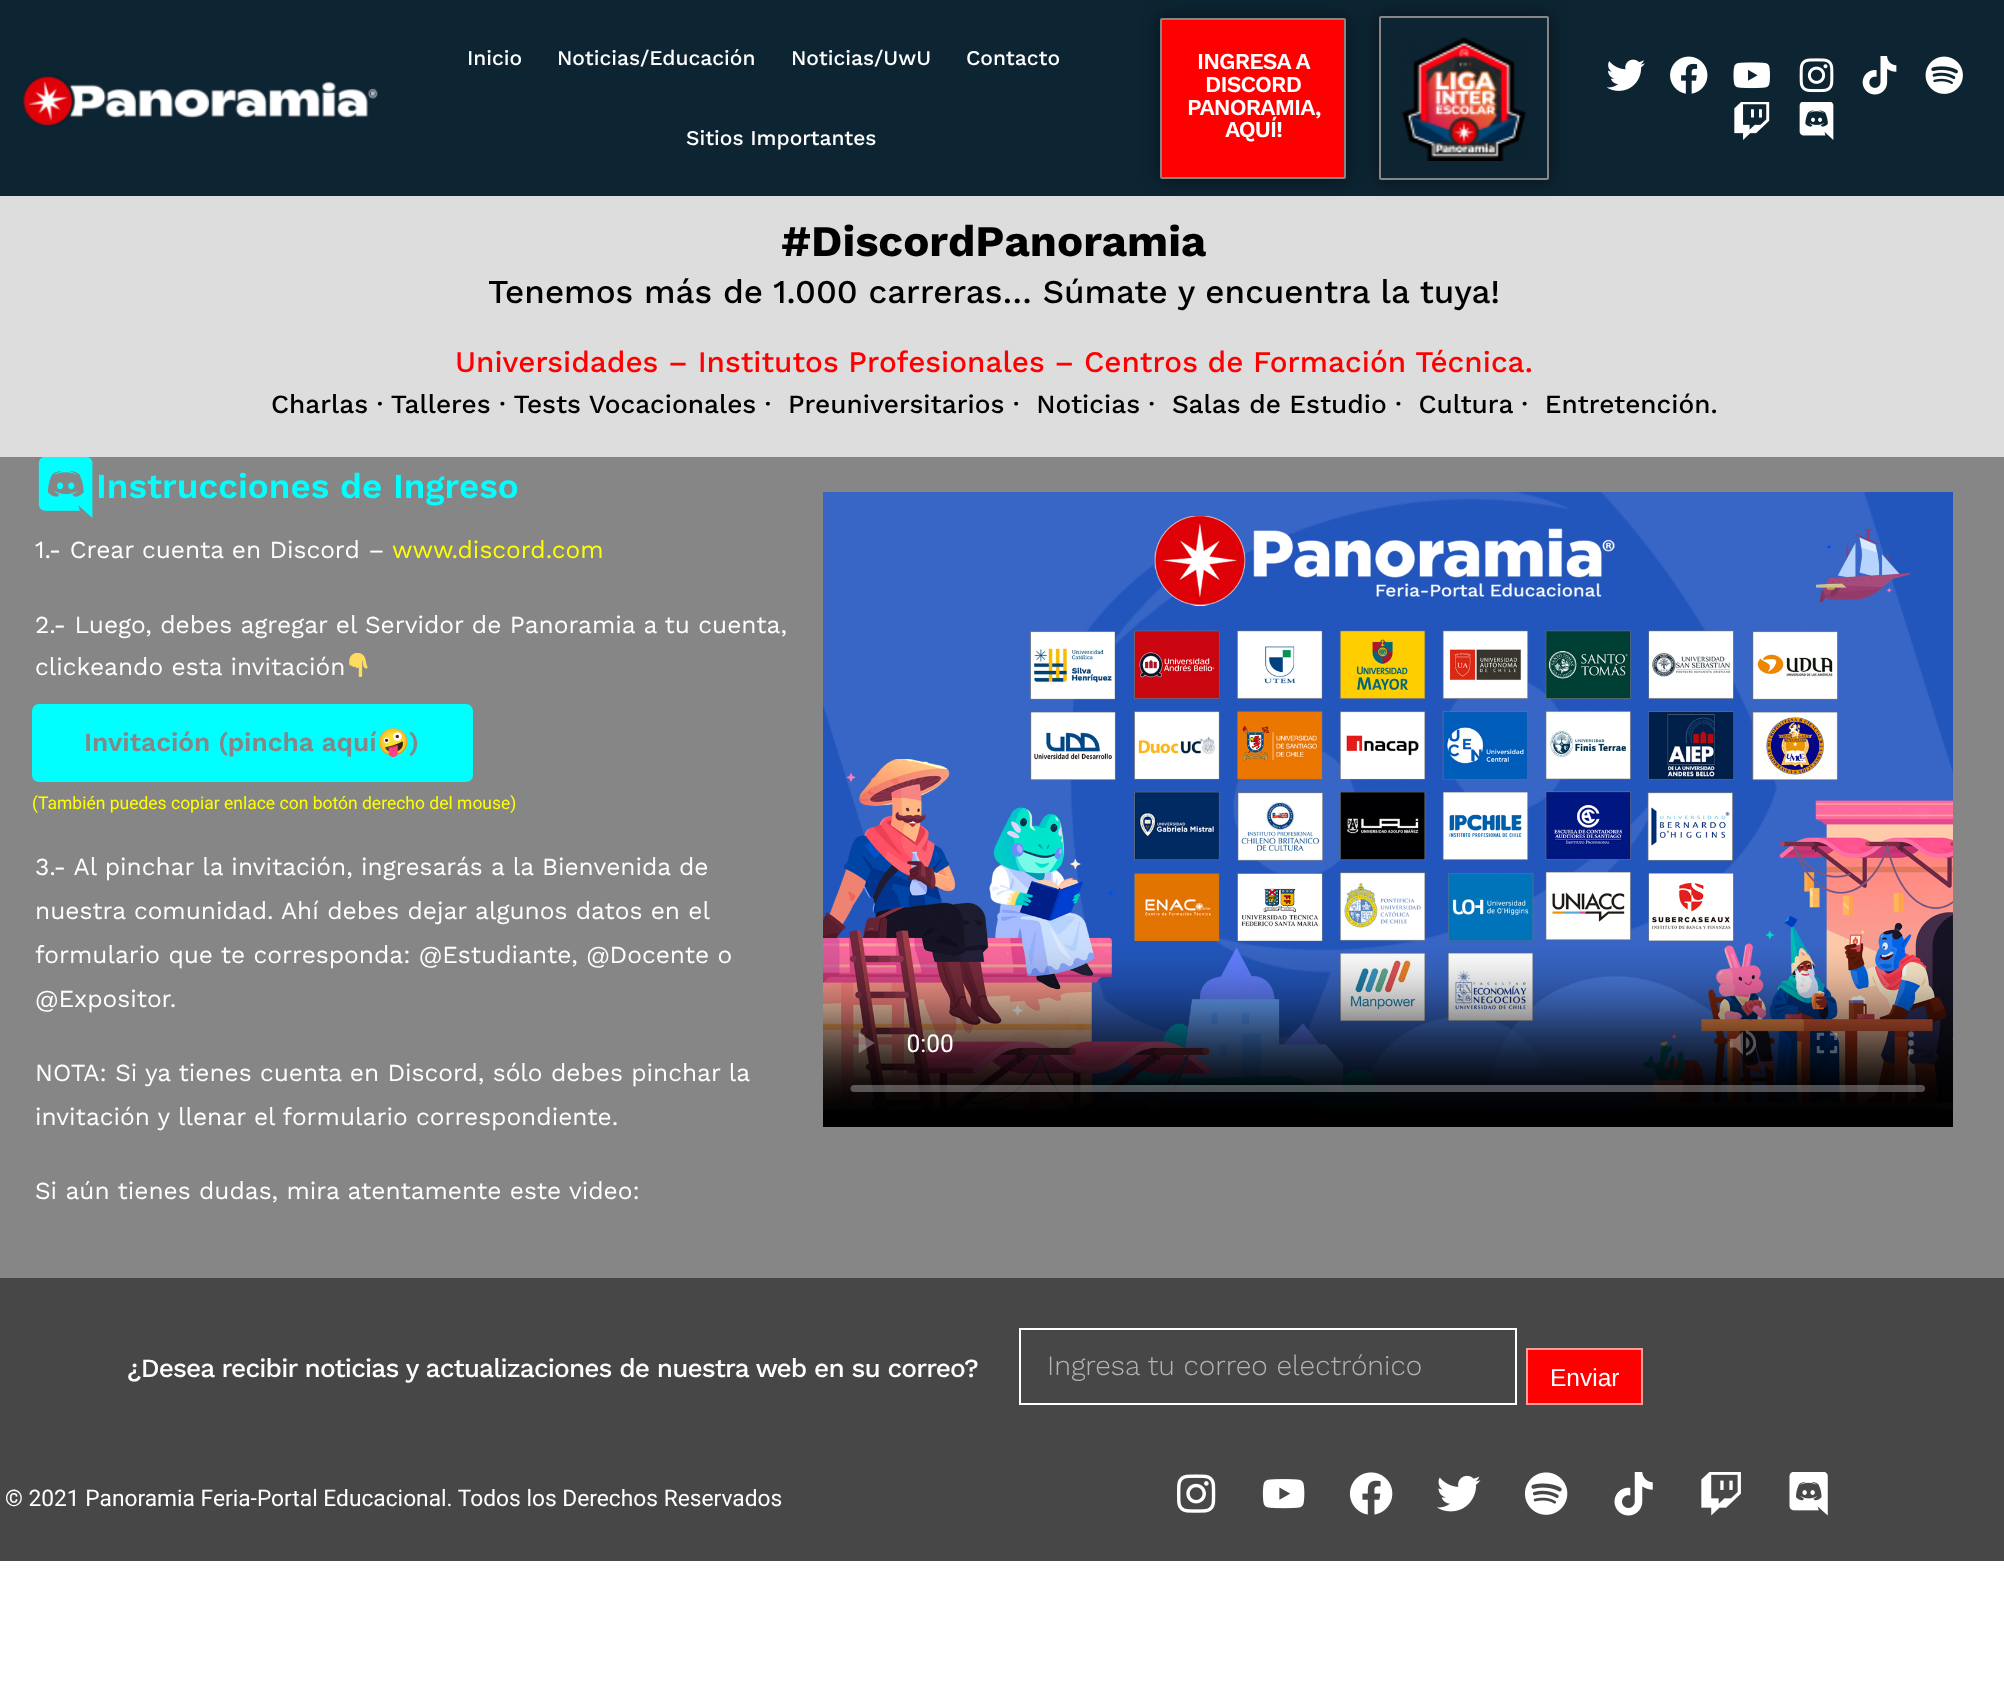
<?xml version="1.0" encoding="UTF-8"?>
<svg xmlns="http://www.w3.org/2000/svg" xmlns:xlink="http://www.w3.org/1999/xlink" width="2004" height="1703">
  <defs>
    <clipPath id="clip1"><path d="M 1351 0 h 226 v 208 h -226 z m 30 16 h 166 c 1 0 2 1 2 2 v 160 c 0 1 -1 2 -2 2 h -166 c -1 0 -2 -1 -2 -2 v -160 c 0 -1 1 -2 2 -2 z" clip-rule="evenodd" /></clipPath>
  </defs>
  <rect width="100%" height="100%" fill="#ffffff" />
  <rect width="2004" height="196" fill="#0d2432" />
  <image x="22" y="75" width="356" height="52" xlink:href="image1.png" />
  <rect y="196" width="2004" height="261" fill="#dddddd" />
  <rect x="1160" y="18" width="186" height="161" rx="2" fill="#000000" fill-opacity="0.5" filter="blur(9px)" />
  <rect x="1161" y="19" width="184" height="159" rx="1" fill="#ff0000" stroke="#868686" stroke-width="2" />
  <g clip-path="url(#clip1)">
    <rect x="1379" y="16" width="170" height="164" rx="2" fill="#000000" fill-opacity="0.5" filter="blur(9px)" />
  </g>
  <rect x="1380" y="17" width="168" height="162" rx="1" fill="none" stroke="#868686" stroke-width="2" />
  <image x="1401" y="37" width="126" height="124" xlink:href="image2.png" />
  <image x="1607" y="59" width="38" height="32" xlink:href="image3.png" />
  <image x="1670" y="56" width="38" height="38" xlink:href="image4.png" />
  <image x="1733" y="62" width="37" height="27" xlink:href="image5.png" />
  <image x="1799" y="58" width="35" height="35" xlink:href="image6.png" />
  <image x="1862" y="56" width="35" height="39" xlink:href="image7.png" />
  <image x="1925" y="56" width="38" height="38" xlink:href="image8.png" />
  <image x="1734" y="102" width="36" height="38" xlink:href="image9.png" />
  <image x="1799" y="102" width="35" height="38" xlink:href="image10.png" />
  <rect y="457" width="2004" height="821" fill="#868686" />
  <image x="38" y="457" width="55" height="61" xlink:href="image11.png" />
  <image x="349" y="653" width="19" height="24" xlink:href="image12.png" />
  <rect x="32" y="704" width="441" height="78" rx="7" fill="#00ffff" />
  <rect x="823" y="1110" width="1130" height="17" fill="#000000" />
  <image x="823" y="492" width="1130" height="618" xlink:href="image13.png" />
  <rect y="1278" width="2004" height="283" fill="#474747" />
  <rect x="1020" y="1329" width="496" height="75" fill="none" stroke="#ffffff" stroke-width="2" />
  <rect x="1527" y="1349" width="115" height="55" fill="#ff0000" stroke="#ff9c9c" stroke-width="2" />
  <image x="1177" y="1474" width="39" height="39" xlink:href="image14.png" />
  <image x="1262" y="1479" width="43" height="30" xlink:href="image15.png" />
  <image x="1349" y="1472" width="44" height="43" xlink:href="image16.png" />
  <image x="1437" y="1475" width="44" height="37" xlink:href="image17.png" />
  <image x="1524" y="1472" width="44" height="43" xlink:href="image18.png" />
  <image x="1614" y="1472" width="39" height="44" xlink:href="image19.png" />
  <image x="1701" y="1472" width="40" height="44" xlink:href="image20.png" />
  <image x="1789" y="1472" width="39" height="44" xlink:href="image21.png" />
  <text x="467" y="65" style="font-family: Work Sans; font-size: 21px; font-weight: 500; fill: #ffffff">Inicio</text>
  <text x="557" y="65" style="font-family: Work Sans; font-size: 21px; font-weight: 500; fill: #ffffff">Noticias/Educación</text>
  <text x="791" y="65" style="font-family: Work Sans; font-size: 21px; font-weight: 500; fill: #ffffff">Noticias/UwU</text>
  <text x="966" y="65" style="font-family: Work Sans; font-size: 21px; font-weight: 500; fill: #ffffff">Contacto</text>
  <text x="686" y="145" style="font-family: Work Sans; font-size: 21px; font-weight: 500; fill: #ffffff">Sitios Importantes</text>
  <text x="1197" y="69" style="font-family: Work Sans; font-size: 22.75px; font-weight: 600; letter-spacing: -0.88px; fill: #ffffff">INGRESA A</text>
  <text x="1205" y="92" style="font-family: Work Sans; font-size: 22.75px; font-weight: 600; letter-spacing: -0.88px; fill: #ffffff">DISCORD</text>
  <text x="1187" y="115" style="font-family: Work Sans; font-size: 22.75px; font-weight: 600; letter-spacing: -0.88px; fill: #ffffff">PANORAMIA,</text>
  <text x="1225" y="137" style="font-family: Work Sans; font-size: 22.75px; font-weight: 600; letter-spacing: -0.88px; fill: #ffffff">AQUÍ!</text>
  <text x="781" y="256" style="font-family: Work Sans; font-size: 43.75px; font-weight: bold; fill: #000000">#DiscordPanoramia</text>
  <text x="488" y="303" style="font-family: Work Sans; font-size: 33.25px; font-weight: 500; fill: #000000">Tenemos más de 1.000 carreras… Súmate y encuentra la tuya!</text>
  <text x="455" y="372" style="font-family: Work Sans; font-size: 29.75px; font-weight: 500; fill: #ff0000">Universidades – Institutos Profesionales – Centros de Formación Técnica.</text>
  <text x="271" y="413" style="font-family: Work Sans; font-size: 26.25px; font-weight: 500; fill: #000000" xml:space="preserve">Charlas · Talleres · Tests Vocacionales ·  Preuniversitarios ·  Noticias ·  Salas de Estudio ·  Cultura ·  Entretención.</text>
  <text x="96" y="498" style="font-family: Work Sans; font-size: 35px; font-weight: 600; fill: #00ffff">Instrucciones de Ingreso</text>
  <text x="35" y="558" style="font-family: Work Sans; font-size: 24.5px; fill: #ffffff">1.- Crear cuenta en Discord –</text>
  <text x="392" y="558" style="font-family: Work Sans; font-size: 24.5px; fill: #ffff00">www.discord.com</text>
  <text x="35" y="633" style="font-family: Work Sans; font-size: 24.5px; fill: #ffffff">2.- Luego, debes agregar el Servidor de Panoramia a tu cuenta,</text>
  <text x="35" y="675" style="font-family: Work Sans; font-size: 24.5px; fill: #ffffff">clickeando esta invitación</text>
  <text x="84" y="751" style="font-family: Work Sans; font-size: 26.25px; font-weight: 600; fill: #868686">Invitación (pincha aquí</text>
  <text x="377" y="751" style="font-family: Noto Color Emoji; font-size: 26.25px; font-weight: bold; fill: #868686">🤪</text>
  <text x="409" y="751" style="font-family: Work Sans; font-size: 26.25px; font-weight: 600; fill: #868686">)</text>
  <text x="32" y="809" style="font-family: Roboto; font-size: 17.5px; fill: #ffff00">(También puedes copiar enlace con botón derecho del mouse)</text>
  <text x="35" y="875" style="font-family: Work Sans; font-size: 24.5px; fill: #ffffff">3.- Al pinchar la invitación, ingresarás a la Bienvenida de</text>
  <text x="35" y="919" style="font-family: Work Sans; font-size: 24.5px; fill: #ffffff">nuestra comunidad. Ahí debes dejar algunos datos en el</text>
  <text x="35" y="963" style="font-family: Work Sans; font-size: 24.5px; fill: #ffffff">formulario que te corresponda: @Estudiante, @Docente o</text>
  <text x="35" y="1007" style="font-family: Work Sans; font-size: 24.5px; fill: #ffffff">@Expositor.</text>
  <text x="35" y="1081" style="font-family: Work Sans; font-size: 24.5px; fill: #ffffff">NOTA: Si ya tienes cuenta en Discord, sólo debes pinchar la</text>
  <text x="35" y="1125" style="font-family: Work Sans; font-size: 24.5px; fill: #ffffff">invitación y llenar el formulario correspondiente.</text>
  <text x="35" y="1199" style="font-family: Work Sans; font-size: 24.5px; fill: #ffffff">Si aún tienes dudas, mira atentamente este video:</text>
  <text x="127" y="1377" style="font-family: Work Sans; font-size: 26.25px; font-weight: 500; letter-spacing: -0.88px; fill: #ffffff">¿Desea recibir noticias y actualizaciones de nuestra web en su correo?</text>
  <text x="1047" y="1375" style="font-family: Work Sans; font-size: 28px; font-weight: 300; fill: #b3b3b3">Ingresa tu correo electrónico</text>
  <text x="1550" y="1386" style="font-family: Liberation Sans; font-size: 24.5px; fill: #ffffff">Enviar</text>
  <text x="5" y="1506" style="font-family: Roboto; font-size: 22.75px; fill: #ffffff">© 2021 Panoramia Feria-Portal Educacional. Todos los Derechos Reservados</text>
</svg>
